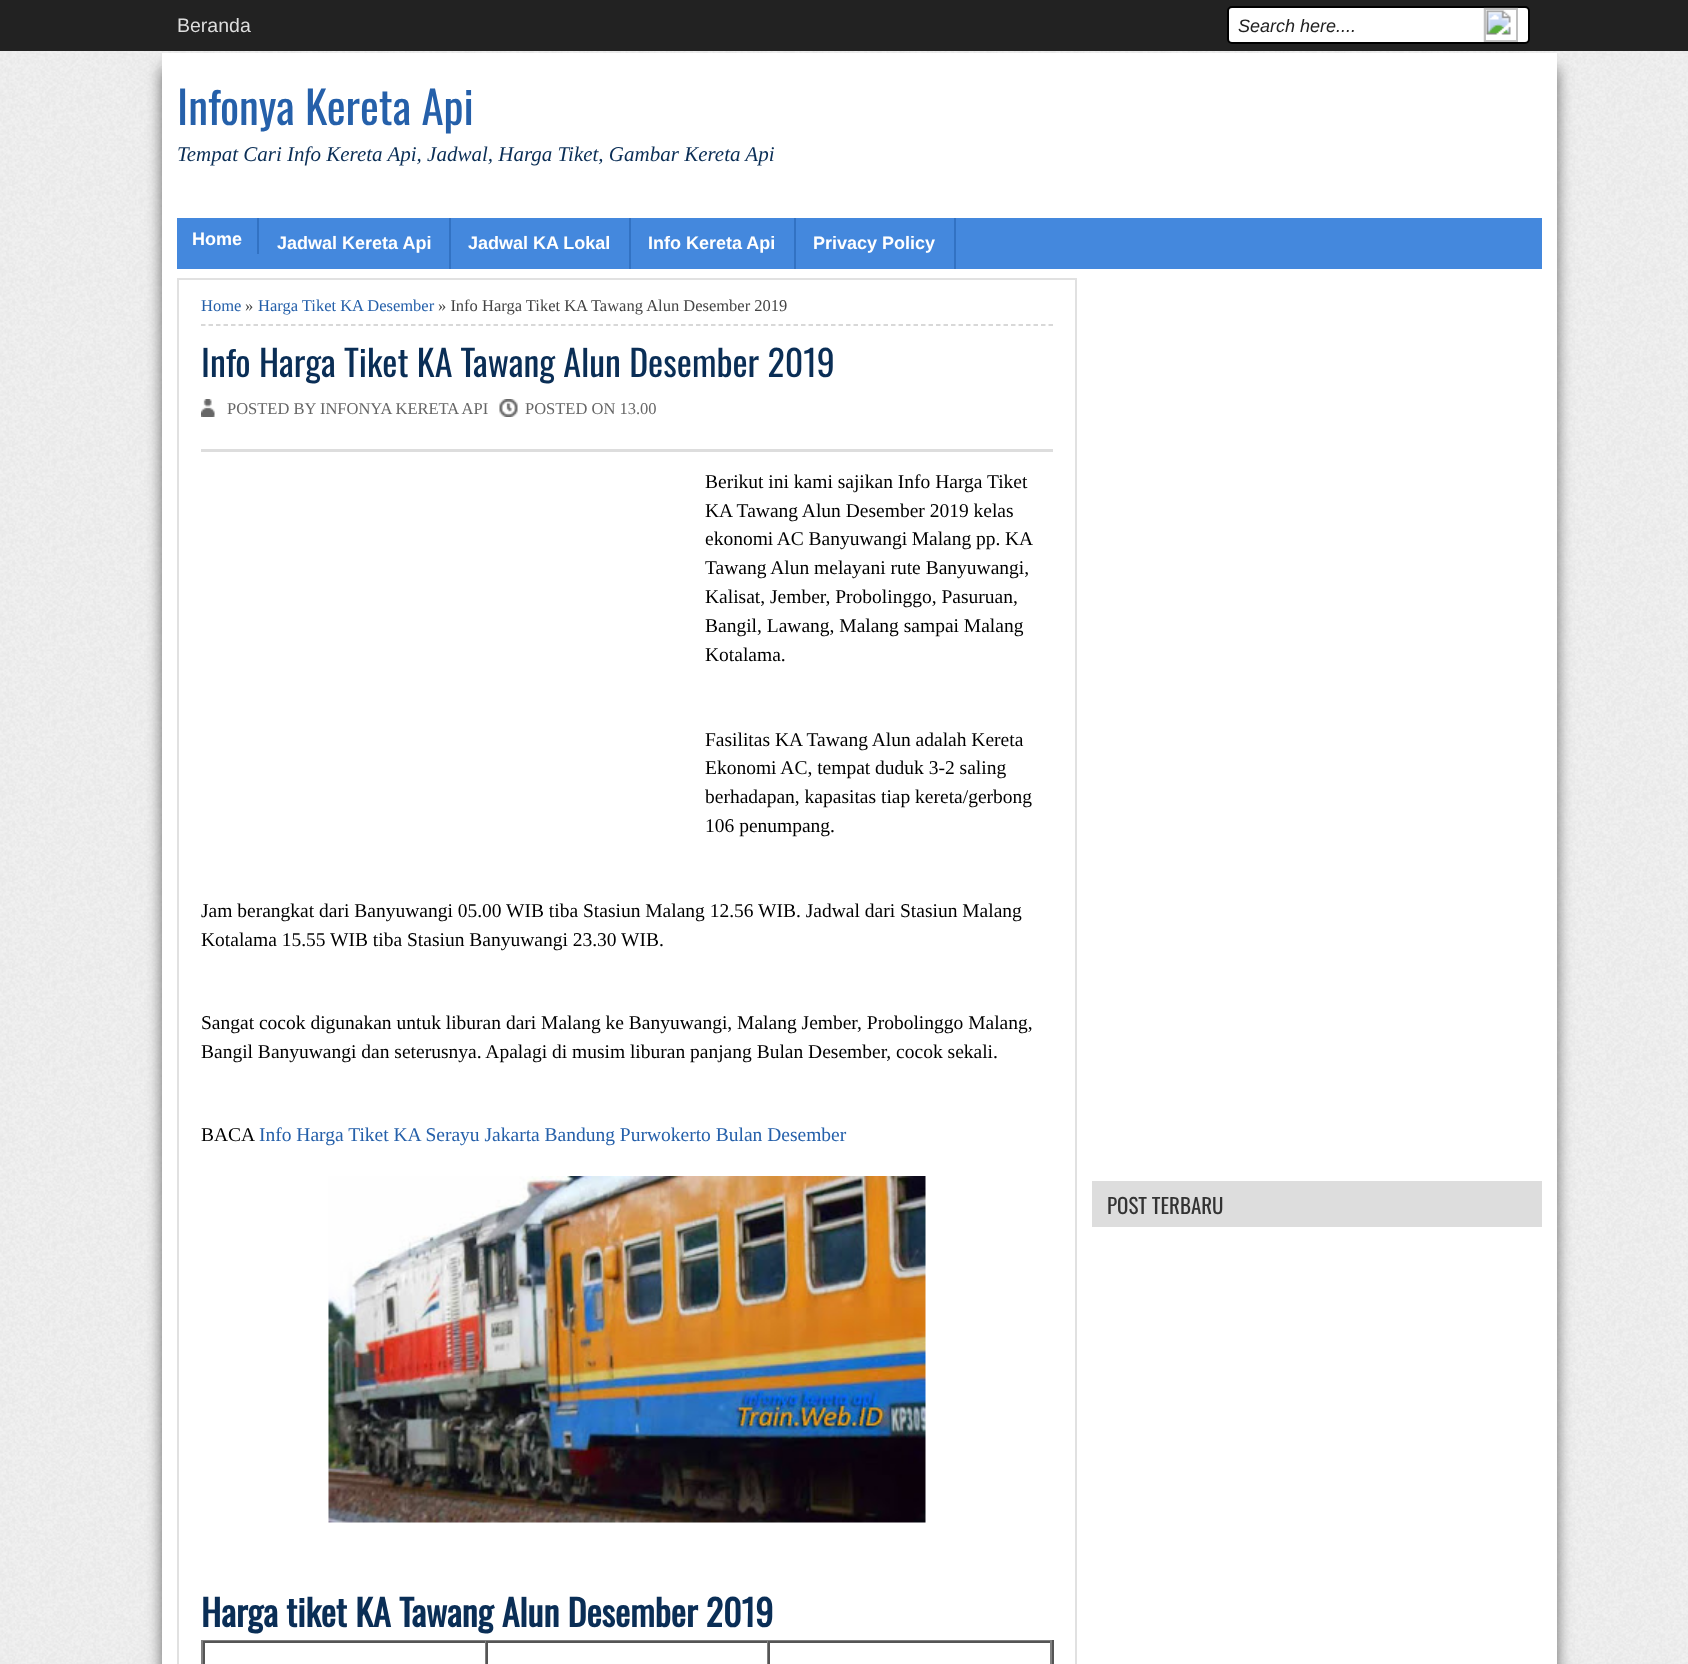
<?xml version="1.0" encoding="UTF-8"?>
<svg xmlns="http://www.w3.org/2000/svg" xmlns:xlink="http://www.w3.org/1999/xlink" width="1688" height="1664">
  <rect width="100%" height="100%" fill="#ffffff" />
  <image x="0" y="51" width="1688" height="1613" xlink:href="image1.png" />
  <rect width="1688" height="51" fill="#222222" />
  <rect x="1228" y="7" width="301" height="36" rx="4" fill="#ffffff" stroke="#000000" stroke-width="2" />
  <image x="1483" y="7" width="35" height="35" xlink:href="image2.png" />
  <rect x="1485" y="9" width="32" height="32" fill="none" stroke="#c0c0c0" stroke-width="2" />
  <rect x="162" y="68" width="1395" height="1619" fill="#666666" filter="blur(7.5px)" />
  <rect x="162" y="53" width="1395" height="1611" fill="#ffffff" />
  <rect x="177" y="218" width="1365" height="51" fill="#4488dd" />
  <rect x="257" y="218" width="2" height="36" fill="#3272c3" />
  <rect x="449" y="218" width="2" height="51" fill="#3272c3" />
  <rect x="629" y="218" width="2" height="51" fill="#3272c3" />
  <rect x="794" y="218" width="2" height="51" fill="#3272c3" />
  <rect x="954" y="218" width="2" height="51" fill="#3272c3" />
  <rect x="178" y="279" width="898" height="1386" fill="none" stroke="#e1e1e1" stroke-width="2" />
  <path d="M 201 325 h 852" fill="none" stroke="#cccccc" stroke-width="1.5" stroke-dasharray="4.5 3" />
  <image x="201" y="399" width="14" height="18" xlink:href="image3.png" />
  <image x="499" y="399" width="19" height="18" xlink:href="image4.png" />
  <rect x="201" y="449" width="852" height="3" fill="#dddddd" />
  <image x="328" y="1176" width="598" height="347" xlink:href="image5.png" />
  <rect x="201" y="1640" width="852" height="1" fill="#808080" />
  <rect x="1052" y="1640" width="2" height="24" fill="#555555" />
  <rect x="201" y="1640" width="2" height="24" fill="#808080" />
  <rect x="203" y="1641" width="849" height="2" fill="#555555" />
  <rect x="485" y="1641" width="1" height="23" fill="#808080" />
  <rect x="203" y="1641" width="2" height="23" fill="#555555" />
  <rect x="767" y="1641" width="1" height="23" fill="#808080" />
  <rect x="486" y="1641" width="2" height="23" fill="#555555" />
  <rect x="1050" y="1641" width="2" height="23" fill="#808080" />
  <rect x="768" y="1641" width="2" height="23" fill="#555555" />
  <rect x="1092" y="1181" width="450" height="46" fill="#dddddd" />
  <text x="177" y="32" style="font-family: Liberation Sans; font-size: 19.5px; fill: #dddddd">Beranda</text>
  <text x="1238" y="32" style="font-family: Liberation Sans; font-size: 18px; font-style: italic; fill: #222222">Search here....</text>
  <text x="177" y="125" style="font-family: Oswald; font-size: 45px; fill: #2560aa">Infonya Kereta Api</text>
  <text x="177" y="161" style="font-family: Liberation Serif; font-size: 21px; font-style: italic; fill: #0a2e56">Tempat Cari Info Kereta Api, Jadwal, Harga Tiket, Gambar Kereta Api</text>
  <text x="192" y="245" style="font-family: Liberation Sans; font-size: 18px; font-weight: bold; fill: #ffffff">Home</text>
  <text x="277" y="249" style="font-family: Liberation Sans; font-size: 18px; font-weight: bold; fill: #ffffff">Jadwal Kereta Api</text>
  <text x="468" y="249" style="font-family: Liberation Sans; font-size: 18px; font-weight: bold; fill: #ffffff">Jadwal KA Lokal</text>
  <text x="648" y="249" style="font-family: Liberation Sans; font-size: 18px; font-weight: bold; fill: #ffffff">Info Kereta Api</text>
  <text x="813" y="249" style="font-family: Liberation Sans; font-size: 18px; font-weight: bold; fill: #ffffff">Privacy Policy</text>
  <text x="201" y="311" style="font-family: Liberation Serif; font-size: 16.5px; fill: #2560aa">Home</text>
  <text x="245" y="311" style="font-family: Liberation Serif; font-size: 16.5px; fill: #444444">»</text>
  <text x="258" y="311" style="font-family: Liberation Serif; font-size: 16.5px; fill: #2560aa">Harga Tiket KA Desember</text>
  <text x="438" y="311" style="font-family: Liberation Serif; font-size: 16.5px; fill: #444444">» Info Harga Tiket KA Tawang Alun Desember 2019</text>
  <text x="201" y="377" style="font-family: Oswald; font-size: 36px; fill: #0a2e56">Info Harga Tiket KA Tawang Alun Desember 2019</text>
  <text x="227" y="414" style="font-family: Liberation Serif; font-size: 16.5px; fill: #666666">POSTED BY INFONYA KERETA API</text>
  <text x="525" y="414" style="font-family: Liberation Serif; font-size: 16.5px; fill: #666666">POSTED ON 13.00</text>
  <text x="705" y="488" style="font-family: Liberation Serif; font-size: 19.5px; fill: #000000">Berikut ini kami sajikan Info Harga Tiket</text>
  <text x="705" y="517" style="font-family: Liberation Serif; font-size: 19.5px; fill: #000000">KA Tawang Alun Desember 2019 kelas</text>
  <text x="705" y="545" word-spacing="-0.25" style="font-family: Liberation Serif; font-size: 19.5px; fill: #000000">ekonomi AC Banyuwangi Malang pp. KA</text>
  <text x="705" y="574" style="font-family: Liberation Serif; font-size: 19.5px; fill: #000000">Tawang Alun melayani rute Banyuwangi,</text>
  <text x="705" y="603" style="font-family: Liberation Serif; font-size: 19.5px; fill: #000000">Kalisat, Jember, Probolinggo, Pasuruan,</text>
  <text x="705" y="632" style="font-family: Liberation Serif; font-size: 19.5px; fill: #000000">Bangil, Lawang, Malang sampai Malang</text>
  <text x="705" y="661" style="font-family: Liberation Serif; font-size: 19.5px; fill: #000000">Kotalama.</text>
  <text x="705" y="746" style="font-family: Liberation Serif; font-size: 19.5px; fill: #000000">Fasilitas KA Tawang Alun adalah Kereta</text>
  <text x="705" y="774" style="font-family: Liberation Serif; font-size: 19.5px; fill: #000000">Ekonomi AC, tempat duduk 3-2 saling</text>
  <text x="705" y="803" style="font-family: Liberation Serif; font-size: 19.5px; fill: #000000">berhadapan, kapasitas tiap kereta/gerbong</text>
  <text x="705" y="832" style="font-family: Liberation Serif; font-size: 19.5px; fill: #000000">106 penumpang.</text>
  <text x="201" y="917" style="font-family: Liberation Serif; font-size: 19.5px; fill: #000000">Jam berangkat dari Banyuwangi 05.00 WIB tiba Stasiun Malang 12.56 WIB. Jadwal dari Stasiun Malang</text>
  <text x="201" y="946" style="font-family: Liberation Serif; font-size: 19.5px; fill: #000000">Kotalama 15.55 WIB tiba Stasiun Banyuwangi 23.30 WIB.</text>
  <text x="201" y="1029" style="font-family: Liberation Serif; font-size: 19.5px; fill: #000000">Sangat cocok digunakan untuk liburan dari Malang ke Banyuwangi, Malang Jember, Probolinggo Malang,</text>
  <text x="201" y="1058" style="font-family: Liberation Serif; font-size: 19.5px; fill: #000000">Bangil Banyuwangi dan seterusnya. Apalagi di musim liburan panjang Bulan Desember, cocok sekali.</text>
  <text x="201" y="1141" style="font-family: Liberation Serif; font-size: 19.5px; fill: #000000">BACA</text>
  <text x="259" y="1141" style="font-family: Liberation Serif; font-size: 19.5px; fill: #2560aa">Info Harga Tiket KA Serayu Jakarta Bandung Purwokerto Bulan Desember</text>
  <text x="201" y="1627" style="font-family: Oswald; font-size: 36px; font-weight: bold; fill: #0a2e56">Harga tiket KA Tawang Alun Desember 2019</text>
  <text x="1107" y="1214" style="font-family: Oswald; font-size: 21px; fill: #333333">POST TERBARU</text>
</svg>
